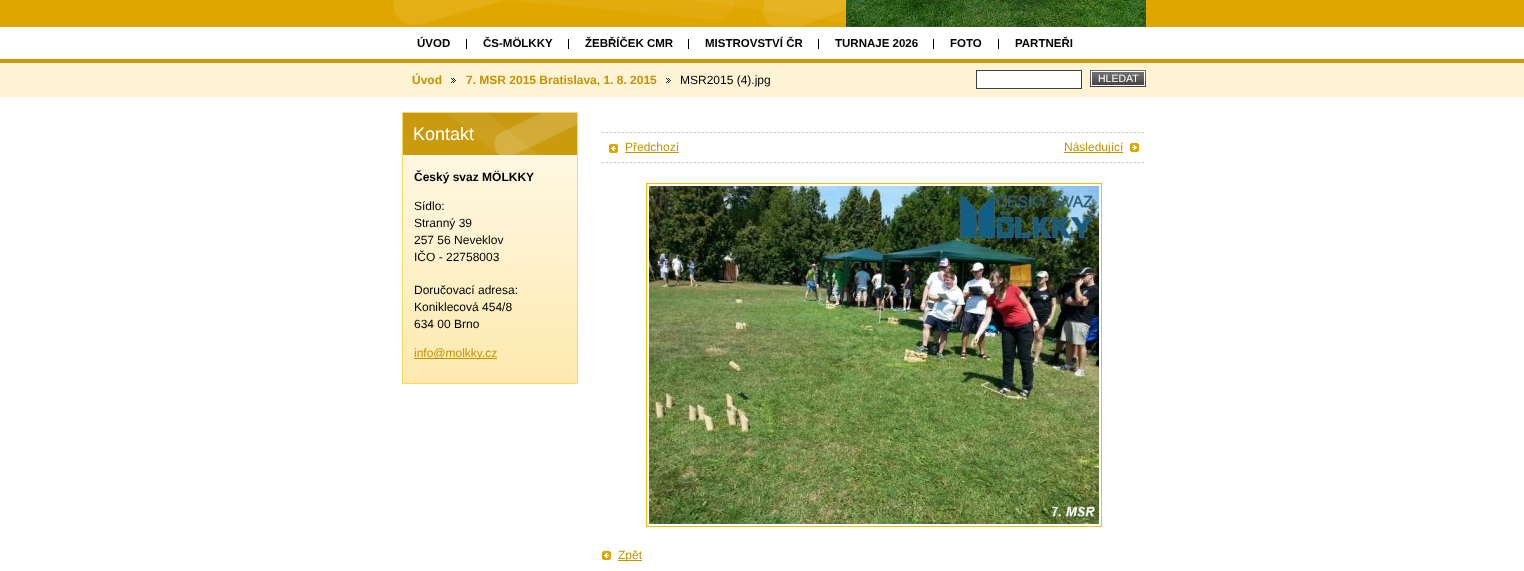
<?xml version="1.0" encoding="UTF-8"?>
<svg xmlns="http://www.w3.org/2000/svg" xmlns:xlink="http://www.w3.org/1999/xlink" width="1524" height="571">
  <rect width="100%" height="100%" fill="#ffffff" />
  <rect width="1524" height="27" fill="#dfa600" />
  <image x="393" y="0" width="453" height="27" xlink:href="image1.png" />
  <image x="846" y="0" width="300" height="27" xlink:href="image2.png" />
  <rect x="466" y="39" width="1" height="10" fill="#000000" />
  <rect x="568" y="39" width="1" height="10" fill="#000000" />
  <rect x="688" y="39" width="1" height="10" fill="#000000" />
  <rect x="818" y="39" width="1" height="10" fill="#000000" />
  <rect x="933" y="39" width="1" height="10" fill="#000000" />
  <rect x="998" y="39" width="1" height="10" fill="#000000" />
  <rect y="63" width="1524" height="34" fill="#fef3d4" />
  <rect y="59" width="1524" height="4" fill="#ca9a0f" />
  <image x="451" y="78" width="5" height="5" xlink:href="image3.png" />
  <image x="666" y="78" width="5" height="5" xlink:href="image3.png" />
  <rect x="976.5" y="70.5" width="105" height="18" fill="#ffffff" stroke="#404040" />
  <rect x="1090" y="85" width="56" height="2" fill="#404040" />
  <image x="1090" y="70" width="56" height="15" xlink:href="image4.png" />
  <image x="1092" y="72" width="52" height="13" xlink:href="image5.png" />
  <rect x="1091.5" y="71.5" width="53" height="14" fill="none" stroke="#ffffff" />
  <image x="403" y="155" width="174" height="228" xlink:href="image6.png" />
  <rect x="402.5" y="112.5" width="175" height="271" fill="none" stroke="#fed763" />
  <image x="403" y="113" width="174" height="42" xlink:href="image7.png" />
  <rect x="414" y="358" width="83" height="1" fill="#c49300" />
  <image x="602" y="132" width="542" height="1" xlink:href="image8.png" />
  <image x="602" y="162" width="542" height="1" xlink:href="image8.png" />
  <image x="609" y="144" width="9" height="9" xlink:href="image9.png" />
  <rect x="625" y="152" width="54" height="1" fill="#c49300" />
  <rect x="1064" y="152" width="59" height="1" fill="#c49300" />
  <image x="1130" y="143" width="9" height="9" xlink:href="image10.png" />
  <rect x="646.5" y="183.5" width="455" height="343" fill="none" stroke="#ffbd00" />
  <image x="649" y="186" width="450" height="338" xlink:href="image11.png" />
  <image x="602" y="551" width="9" height="9" xlink:href="image9.png" />
  <rect x="618" y="560" width="24" height="1" fill="#c49300" />
  <text x="417" y="47" style="font-family: Liberation Sans; font-size: 11.5px; font-weight: bold; fill: #000000">ÚVOD</text>
  <text x="483" y="47" style="font-family: Liberation Sans; font-size: 11.5px; font-weight: bold; fill: #000000">ČS-MÖLKKY</text>
  <text x="585" y="47" style="font-family: Liberation Sans; font-size: 11.5px; font-weight: bold; fill: #000000">ŽEBŘÍČEK CMR</text>
  <text x="705" y="47" style="font-family: Liberation Sans; font-size: 11.5px; font-weight: bold; fill: #000000">MISTROVSTVÍ ČR</text>
  <text x="835" y="47" style="font-family: Liberation Sans; font-size: 11.5px; font-weight: bold; fill: #000000">TURNAJE 2026</text>
  <text x="950" y="47" style="font-family: Liberation Sans; font-size: 11.5px; font-weight: bold; fill: #000000">FOTO</text>
  <text x="1015" y="47" style="font-family: Liberation Sans; font-size: 11.5px; font-weight: bold; fill: #000000">PARTNEŘI</text>
  <text x="412" y="84" style="font-family: Liberation Sans; font-size: 12px; font-weight: bold; fill: #c49300">Úvod</text>
  <text x="466" y="84" style="font-family: Liberation Sans; font-size: 12px; font-weight: bold; fill: #c49300">7. MSR 2015 Bratislava, 1. 8. 2015</text>
  <text x="680" y="84" style="font-family: Liberation Sans; font-size: 12px; fill: #000000">MSR2015 (4).jpg</text>
  <text x="1098" y="82" style="font-family: Liberation Sans; font-size: 10.5px; fill: #ffffff">HLEDAT</text>
  <text x="413" y="140" style="font-family: Liberation Sans; font-size: 18px; fill: #ffffff">Kontakt</text>
  <text x="414" y="181" style="font-family: Liberation Sans; font-size: 12px; font-weight: bold; fill: #000000">Český svaz MÖLKKY</text>
  <text x="414" y="210" style="font-family: Liberation Sans; font-size: 12px; fill: #000000">Sídlo:</text>
  <text x="414" y="227" style="font-family: Liberation Sans; font-size: 12px; fill: #000000">Stranný 39</text>
  <text x="414" y="244" style="font-family: Liberation Sans; font-size: 12px; fill: #000000">257 56 Neveklov</text>
  <text x="414" y="261" style="font-family: Liberation Sans; font-size: 12px; fill: #000000">IČO - 22758003</text>
  <text x="414" y="294" style="font-family: Liberation Sans; font-size: 12px; fill: #000000">Doručovací adresa:</text>
  <text x="414" y="311" style="font-family: Liberation Sans; font-size: 12px; fill: #000000">Koniklecová 454/8</text>
  <text x="414" y="328" style="font-family: Liberation Sans; font-size: 12px; fill: #000000">634 00 Brno</text>
  <text x="414" y="357" style="font-family: Liberation Sans; font-size: 12px; fill: #c49300">info@molkky.cz</text>
  <text x="625" y="151" style="font-family: Liberation Sans; font-size: 12px; fill: #c49300">Předchozí</text>
  <text x="1064" y="151" style="font-family: Liberation Sans; font-size: 12px; fill: #c49300">Následující</text>
  <text x="618" y="559" style="font-family: Liberation Sans; font-size: 12px; fill: #c49300">Zpět</text>
</svg>
